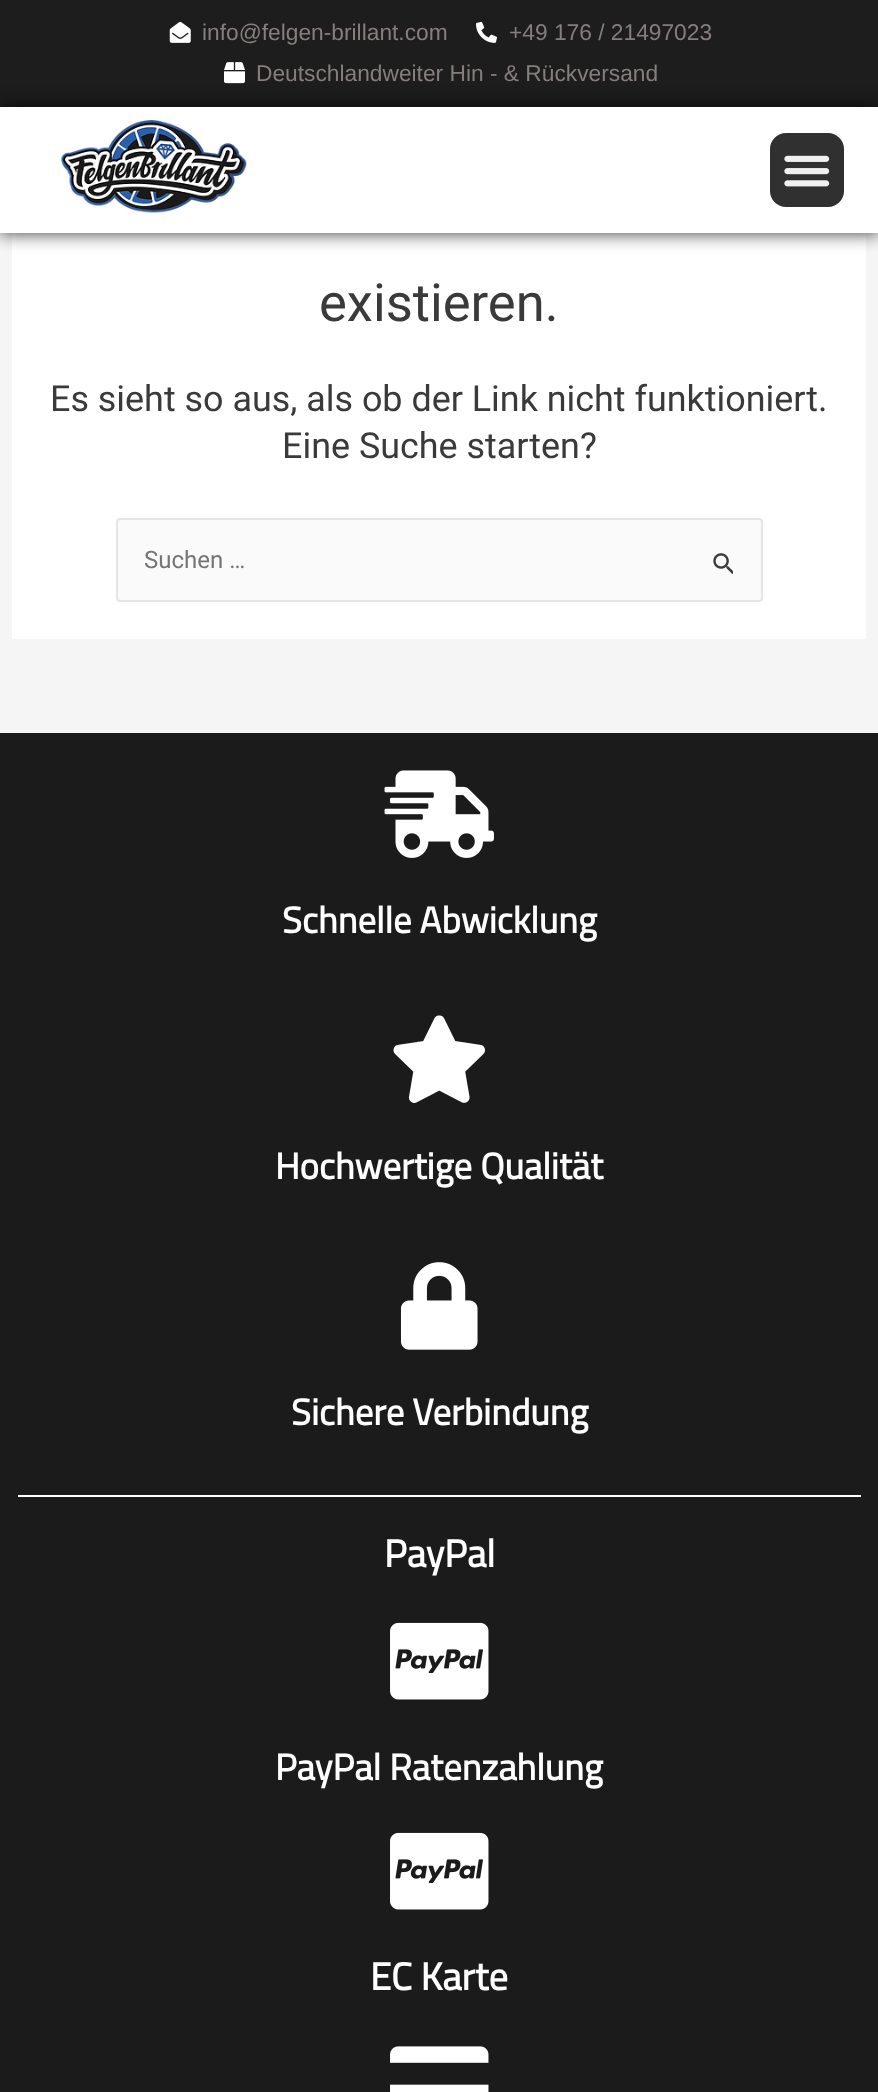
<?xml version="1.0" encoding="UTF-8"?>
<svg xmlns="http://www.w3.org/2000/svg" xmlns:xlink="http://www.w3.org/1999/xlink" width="878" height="2092">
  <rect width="100%" height="100%" fill="#f5f5f5" />
  <rect width="878" height="107" fill="#1d1d1d" />
  <image x="169" y="21" width="22" height="22" xlink:href="image1.png" />
  <image x="476" y="21" width="21" height="22" xlink:href="image2.png" />
  <image x="224" y="62" width="21" height="22" xlink:href="image3.png" />
  <rect x="12" y="233" width="854" height="406" fill="#ffffff" />
  <rect y="107" width="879" height="126" fill="#000000" fill-opacity="0.8" filter="blur(9px)" />
  <rect y="107" width="878" height="126" fill="#ffffff" />
  <image x="61" y="119" width="186" height="94" xlink:href="image4.png" />
  <rect x="770" y="133" width="74" height="74" rx="16" fill="#303030" />
  <image x="784" y="155" width="46" height="32" xlink:href="image5.png" />
  <rect x="117" y="519" width="645" height="82" rx="3" fill="#fafafa" stroke="#e5e5e5" stroke-width="2" />
  <image x="713" y="553" width="20" height="21" xlink:href="image6.png" />
  <rect y="733" width="878" height="1359" fill="#1b1b1b" />
  <image x="384" y="770" width="110" height="88" xlink:href="image7.png" />
  <image x="393" y="1015" width="92" height="88" xlink:href="image8.png" />
  <image x="400" y="1262" width="78" height="88" xlink:href="image9.png" />
  <rect x="18" y="1495" width="843" height="2" fill="#ffffff" />
  <image x="390" y="1622" width="99" height="78" xlink:href="image10.png" />
  <image x="390" y="1832" width="99" height="78" xlink:href="image10.png" />
  <image x="390" y="2046" width="99" height="46" xlink:href="image11.png" />
  <text x="202" y="40" style="font-family: Liberation Sans; font-size: 22.75px; fill: #867d7d">info@felgen-brillant.com</text>
  <text x="509" y="40" style="font-family: Liberation Sans; font-size: 22.75px; fill: #867d7d">+49 176 / 21497023</text>
  <text x="256" y="81" style="font-family: Liberation Sans; font-size: 22.75px; fill: #867d7d">Deutschlandweiter Hin - &amp; Rückversand</text>
  <text x="319" y="321" style="font-family: Roboto; font-size: 52.5px; fill: #3a3a3a">existieren.</text>
  <text x="50" y="411" style="font-family: Roboto; font-size: 35.9px; fill: #3a3a3a">Es sieht so aus, als ob der Link nicht funktioniert.</text>
  <text x="282" y="458" style="font-family: Roboto; font-size: 35.9px; fill: #3a3a3a">Eine Suche starten?</text>
  <text x="144" y="568" style="font-family: Roboto; font-size: 24px; fill: #757575">Suchen …</text>
  <text x="282" y="933" style="font-family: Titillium; font-size: 36.75px; font-weight: bold; fill: #ffffff">Schnelle Abwicklung</text>
  <text x="275" y="1179" style="font-family: Titillium; font-size: 36.75px; font-weight: bold; fill: #ffffff">Hochwertige Qualität</text>
  <text x="291" y="1425" style="font-family: Titillium; font-size: 36.75px; font-weight: bold; fill: #ffffff">Sichere Verbindung</text>
  <text x="384" y="1567" style="font-family: Titillium; font-size: 38.5px; font-weight: bold; fill: #ffffff">PayPal</text>
  <text x="275" y="1780" style="font-family: Titillium; font-size: 36.75px; font-weight: bold; fill: #ffffff">PayPal Ratenzahlung</text>
  <text x="370" y="1990" style="font-family: Titillium; font-size: 38.5px; font-weight: bold; fill: #ffffff">EC Karte</text>
</svg>
